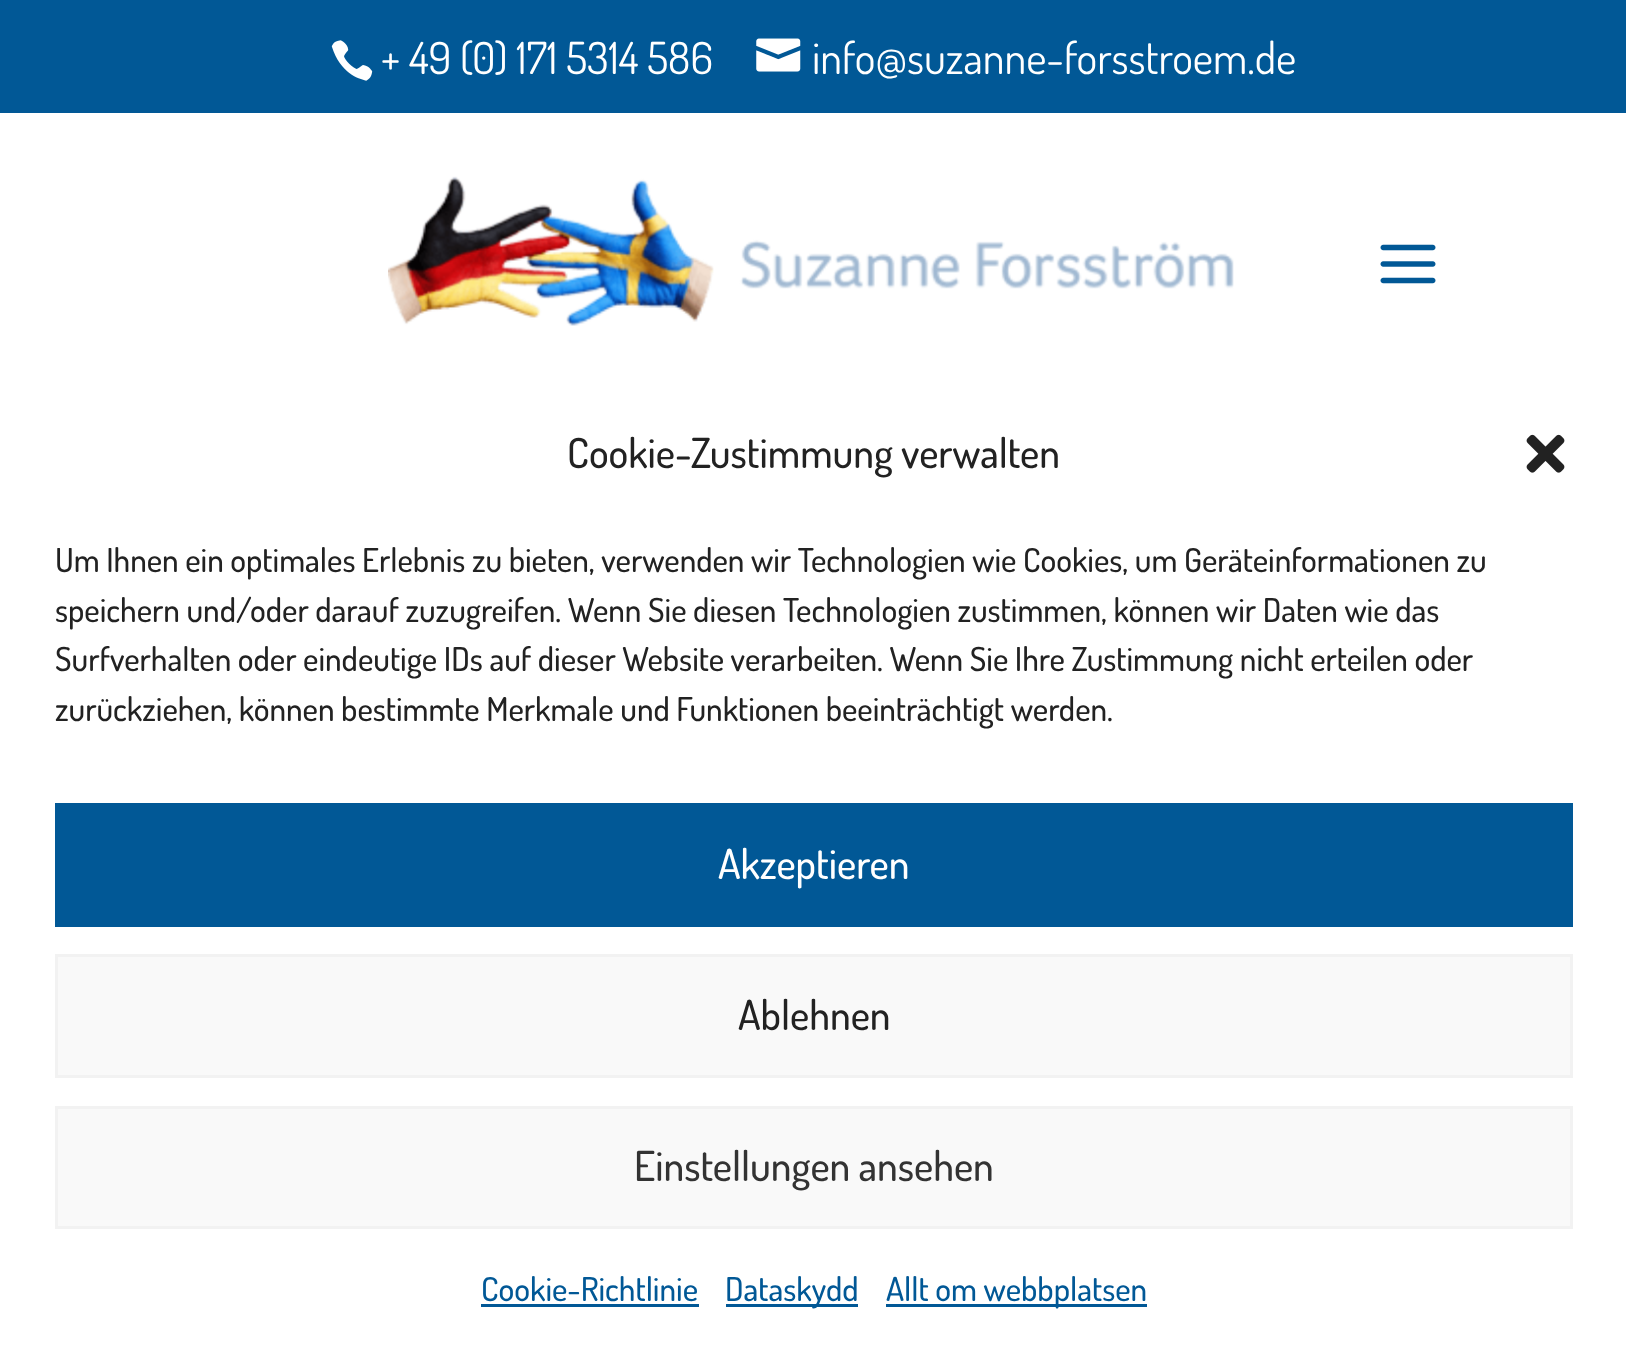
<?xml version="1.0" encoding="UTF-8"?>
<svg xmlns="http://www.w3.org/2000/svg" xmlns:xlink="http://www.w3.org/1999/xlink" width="1626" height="1357">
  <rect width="100%" height="100%" fill="#ffffff" />
  <rect width="1626" height="113" fill="#015896" />
  <image x="331" y="40" width="42" height="41" xlink:href="image1.png" />
  <image x="756" y="38" width="45" height="34" xlink:href="image2.png" />
  <image x="388" y="176" width="846" height="150" xlink:href="image3.png" />
  <image x="1380" y="244" width="56" height="40" xlink:href="image4.png" />
  <image x="1526" y="434" width="39" height="39" xlink:href="image5.png" />
  <rect x="55" y="803" width="1518" height="124" fill="#015896" />
  <rect x="56.5" y="955.5" width="1515" height="121" fill="#f9f9f9" stroke="#f2f2f2" stroke-width="3" />
  <rect x="56.5" y="1107.5" width="1515" height="120" fill="#f9f9f9" stroke="#f2f2f2" stroke-width="3" />
  <rect x="481" y="1304" width="218" height="3" fill="#015896" />
  <rect x="726" y="1304" width="132" height="3" fill="#015896" />
  <rect x="886" y="1304" width="261" height="3" fill="#015896" />
  <text x="381" y="74" style="font-family: Dosis; font-size: 44px; fill: #ffffff">+ 49 (0) 171 5314 586</text>
  <text x="812" y="74" style="font-family: Dosis; font-size: 44px; fill: #ffffff">info@suzanne-forsstroem.de</text>
  <text x="567" y="468" style="font-family: Dosis; font-size: 41.25px; font-weight: 500; fill: #222222">Cookie-Zustimmung verwalten</text>
  <text x="55" y="572" style="font-family: Dosis; font-size: 33px; font-weight: 500; fill: #222222">Um Ihnen ein optimales Erlebnis zu bieten, verwenden wir Technologien wie Cookies, um Geräteinformationen zu</text>
  <text x="55" y="622" style="font-family: Dosis; font-size: 33px; font-weight: 500; fill: #222222">speichern und/oder darauf zuzugreifen. Wenn Sie diesen Technologien zustimmen, können wir Daten wie das</text>
  <text x="55" y="671" style="font-family: Dosis; font-size: 33px; font-weight: 500; fill: #222222">Surfverhalten oder eindeutige IDs auf dieser Website verarbeiten. Wenn Sie Ihre Zustimmung nicht erteilen oder</text>
  <text x="55" y="721" style="font-family: Dosis; font-size: 33px; font-weight: 500; fill: #222222">zurückziehen, können bestimmte Merkmale und Funktionen beeinträchtigt werden.</text>
  <text x="718" y="879" style="font-family: Dosis; font-size: 41.25px; font-weight: 500; fill: #ffffff">Akzeptieren</text>
  <text x="738" y="1030" style="font-family: Dosis; font-size: 41.25px; font-weight: 500; fill: #222222">Ablehnen</text>
  <text x="634" y="1181" style="font-family: Dosis; font-size: 41.25px; font-weight: 500; fill: #333333">Einstellungen ansehen</text>
  <text x="481" y="1301" style="font-family: Dosis; font-size: 33px; font-weight: 500; fill: #015896">Cookie-Richtlinie</text>
  <text x="725" y="1301" style="font-family: Dosis; font-size: 33px; font-weight: 500; fill: #015896">Dataskydd</text>
  <text x="886" y="1301" style="font-family: Dosis; font-size: 33px; font-weight: 500; fill: #015896">Allt om webbplatsen</text>
</svg>
